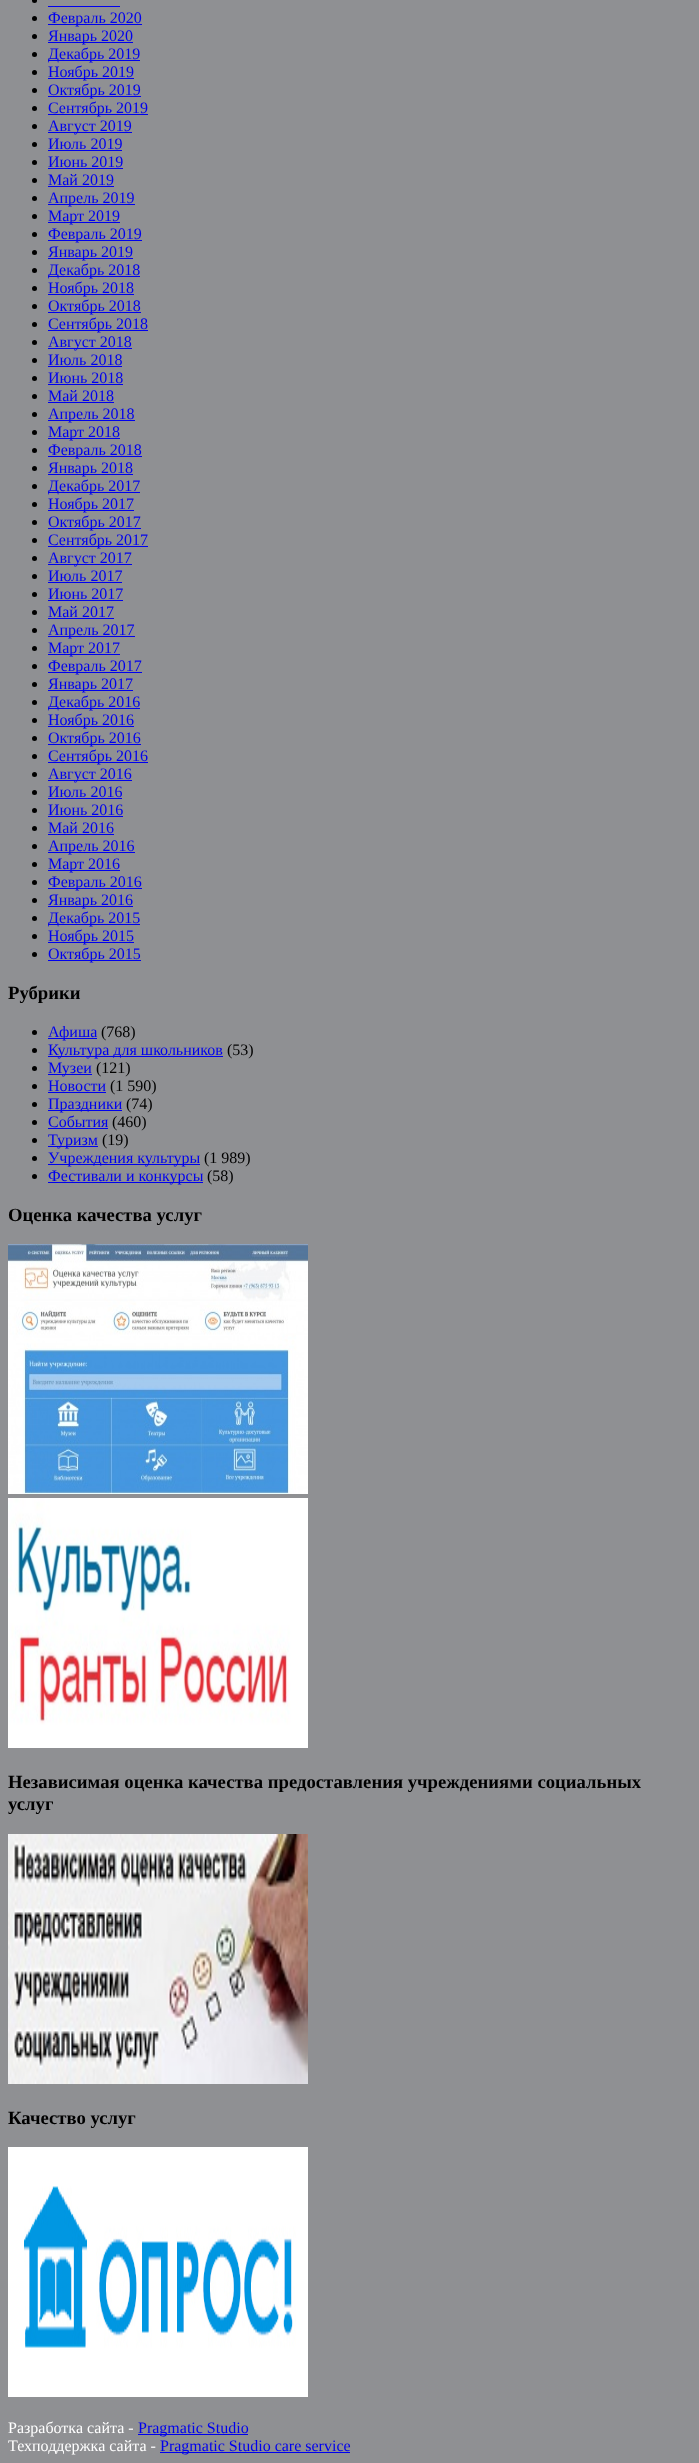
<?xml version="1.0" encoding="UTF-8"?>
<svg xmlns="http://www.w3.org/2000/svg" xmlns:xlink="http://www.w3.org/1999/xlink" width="699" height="2463">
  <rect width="100%" height="100%" fill="#8f9093" />
  <circle cx="34.5" cy="0.5" r="2.5" fill="#000000" />
  <rect x="48" y="6" width="72" height="1" fill="#0000ee" />
  <circle cx="34.5" cy="18.5" r="2.5" fill="#000000" />
  <rect x="48" y="24" width="94" height="1" fill="#0000ee" />
  <circle cx="34.5" cy="36.5" r="2.5" fill="#000000" />
  <rect x="48" y="42" width="85" height="1" fill="#0000ee" />
  <circle cx="34.5" cy="54.5" r="2.5" fill="#000000" />
  <rect x="48" y="60" width="92" height="1" fill="#0000ee" />
  <circle cx="34.5" cy="72.5" r="2.5" fill="#000000" />
  <rect x="48" y="78" width="86" height="1" fill="#0000ee" />
  <circle cx="34.5" cy="90.5" r="2.5" fill="#000000" />
  <rect x="48" y="96" width="93" height="1" fill="#0000ee" />
  <circle cx="34.5" cy="108.5" r="2.5" fill="#000000" />
  <rect x="48" y="114" width="100" height="1" fill="#0000ee" />
  <circle cx="34.5" cy="126.5" r="2.5" fill="#000000" />
  <rect x="48" y="132" width="84" height="1" fill="#0000ee" />
  <circle cx="34.5" cy="144.5" r="2.5" fill="#000000" />
  <rect x="48" y="150" width="74" height="1" fill="#0000ee" />
  <circle cx="34.5" cy="162.5" r="2.5" fill="#000000" />
  <rect x="48" y="168" width="75" height="1" fill="#0000ee" />
  <circle cx="34.5" cy="180.5" r="2.5" fill="#000000" />
  <rect x="48" y="186" width="66" height="1" fill="#0000ee" />
  <circle cx="34.5" cy="198.5" r="2.5" fill="#000000" />
  <rect x="48" y="204" width="87" height="1" fill="#0000ee" />
  <circle cx="34.5" cy="216.5" r="2.5" fill="#000000" />
  <rect x="48" y="222" width="72" height="1" fill="#0000ee" />
  <circle cx="34.5" cy="234.5" r="2.5" fill="#000000" />
  <rect x="48" y="240" width="94" height="1" fill="#0000ee" />
  <circle cx="34.5" cy="252.5" r="2.5" fill="#000000" />
  <rect x="48" y="258" width="85" height="1" fill="#0000ee" />
  <circle cx="34.5" cy="270.5" r="2.5" fill="#000000" />
  <rect x="48" y="276" width="92" height="1" fill="#0000ee" />
  <circle cx="34.5" cy="288.5" r="2.5" fill="#000000" />
  <rect x="48" y="294" width="86" height="1" fill="#0000ee" />
  <circle cx="34.5" cy="306.5" r="2.5" fill="#000000" />
  <rect x="48" y="312" width="93" height="1" fill="#0000ee" />
  <circle cx="34.5" cy="324.5" r="2.5" fill="#000000" />
  <rect x="48" y="330" width="100" height="1" fill="#0000ee" />
  <circle cx="34.5" cy="342.5" r="2.5" fill="#000000" />
  <rect x="48" y="348" width="84" height="1" fill="#0000ee" />
  <circle cx="34.5" cy="360.5" r="2.5" fill="#000000" />
  <rect x="48" y="366" width="74" height="1" fill="#0000ee" />
  <circle cx="34.5" cy="378.5" r="2.5" fill="#000000" />
  <rect x="48" y="384" width="75" height="1" fill="#0000ee" />
  <circle cx="34.5" cy="396.5" r="2.5" fill="#000000" />
  <rect x="48" y="402" width="66" height="1" fill="#0000ee" />
  <circle cx="34.5" cy="414.5" r="2.5" fill="#000000" />
  <rect x="48" y="420" width="87" height="1" fill="#0000ee" />
  <circle cx="34.5" cy="432.5" r="2.5" fill="#000000" />
  <rect x="48" y="438" width="72" height="1" fill="#0000ee" />
  <circle cx="34.5" cy="450.5" r="2.5" fill="#000000" />
  <rect x="48" y="456" width="94" height="1" fill="#0000ee" />
  <circle cx="34.5" cy="468.5" r="2.5" fill="#000000" />
  <rect x="48" y="474" width="85" height="1" fill="#0000ee" />
  <circle cx="34.5" cy="486.5" r="2.5" fill="#000000" />
  <rect x="48" y="492" width="92" height="1" fill="#0000ee" />
  <circle cx="34.5" cy="504.5" r="2.5" fill="#000000" />
  <rect x="48" y="510" width="86" height="1" fill="#0000ee" />
  <circle cx="34.5" cy="522.5" r="2.5" fill="#000000" />
  <rect x="48" y="528" width="93" height="1" fill="#0000ee" />
  <circle cx="34.5" cy="540.5" r="2.5" fill="#000000" />
  <rect x="48" y="546" width="100" height="1" fill="#0000ee" />
  <circle cx="34.5" cy="558.5" r="2.5" fill="#000000" />
  <rect x="48" y="564" width="84" height="1" fill="#0000ee" />
  <circle cx="34.5" cy="576.5" r="2.5" fill="#000000" />
  <rect x="48" y="582" width="74" height="1" fill="#0000ee" />
  <circle cx="34.5" cy="594.5" r="2.5" fill="#000000" />
  <rect x="48" y="600" width="75" height="1" fill="#0000ee" />
  <circle cx="34.5" cy="612.5" r="2.5" fill="#000000" />
  <rect x="48" y="618" width="66" height="1" fill="#0000ee" />
  <circle cx="34.5" cy="630.5" r="2.5" fill="#000000" />
  <rect x="48" y="636" width="87" height="1" fill="#0000ee" />
  <circle cx="34.5" cy="648.5" r="2.5" fill="#000000" />
  <rect x="48" y="654" width="72" height="1" fill="#0000ee" />
  <circle cx="34.5" cy="666.5" r="2.5" fill="#000000" />
  <rect x="48" y="672" width="94" height="1" fill="#0000ee" />
  <circle cx="34.5" cy="684.5" r="2.5" fill="#000000" />
  <rect x="48" y="690" width="85" height="1" fill="#0000ee" />
  <circle cx="34.5" cy="702.5" r="2.5" fill="#000000" />
  <rect x="48" y="708" width="92" height="1" fill="#0000ee" />
  <circle cx="34.5" cy="720.5" r="2.5" fill="#000000" />
  <rect x="48" y="726" width="86" height="1" fill="#0000ee" />
  <circle cx="34.5" cy="738.5" r="2.5" fill="#000000" />
  <rect x="48" y="744" width="93" height="1" fill="#0000ee" />
  <circle cx="34.5" cy="756.5" r="2.5" fill="#000000" />
  <rect x="48" y="762" width="100" height="1" fill="#0000ee" />
  <circle cx="34.5" cy="774.5" r="2.5" fill="#000000" />
  <rect x="48" y="780" width="84" height="1" fill="#0000ee" />
  <circle cx="34.5" cy="792.5" r="2.5" fill="#000000" />
  <rect x="48" y="798" width="74" height="1" fill="#0000ee" />
  <circle cx="34.5" cy="810.5" r="2.5" fill="#000000" />
  <rect x="48" y="816" width="75" height="1" fill="#0000ee" />
  <circle cx="34.5" cy="828.5" r="2.5" fill="#000000" />
  <rect x="48" y="834" width="66" height="1" fill="#0000ee" />
  <circle cx="34.5" cy="846.5" r="2.5" fill="#000000" />
  <rect x="48" y="852" width="87" height="1" fill="#0000ee" />
  <circle cx="34.5" cy="864.5" r="2.5" fill="#000000" />
  <rect x="48" y="870" width="72" height="1" fill="#0000ee" />
  <circle cx="34.5" cy="882.5" r="2.5" fill="#000000" />
  <rect x="48" y="888" width="94" height="1" fill="#0000ee" />
  <circle cx="34.5" cy="900.5" r="2.5" fill="#000000" />
  <rect x="48" y="906" width="85" height="1" fill="#0000ee" />
  <circle cx="34.5" cy="918.5" r="2.5" fill="#000000" />
  <rect x="48" y="924" width="92" height="1" fill="#0000ee" />
  <circle cx="34.5" cy="936.5" r="2.5" fill="#000000" />
  <rect x="48" y="942" width="86" height="1" fill="#0000ee" />
  <circle cx="34.5" cy="954.5" r="2.5" fill="#000000" />
  <rect x="48" y="960" width="93" height="1" fill="#0000ee" />
  <circle cx="34.5" cy="1032.5" r="2.5" fill="#000000" />
  <rect x="48" y="1038" width="49" height="1" fill="#0000ee" />
  <circle cx="34.5" cy="1050.5" r="2.5" fill="#000000" />
  <rect x="48" y="1056" width="175" height="1" fill="#0000ee" />
  <circle cx="34.5" cy="1068.5" r="2.5" fill="#000000" />
  <rect x="48" y="1074" width="44" height="1" fill="#0000ee" />
  <circle cx="34.5" cy="1086.5" r="2.5" fill="#000000" />
  <rect x="48" y="1092" width="58" height="1" fill="#0000ee" />
  <circle cx="34.5" cy="1104.5" r="2.5" fill="#000000" />
  <rect x="48" y="1110" width="74" height="1" fill="#0000ee" />
  <circle cx="34.5" cy="1122.5" r="2.5" fill="#000000" />
  <rect x="48" y="1128" width="60" height="1" fill="#0000ee" />
  <circle cx="34.5" cy="1140.5" r="2.5" fill="#000000" />
  <rect x="48" y="1146" width="50" height="1" fill="#0000ee" />
  <circle cx="34.5" cy="1158.5" r="2.5" fill="#000000" />
  <rect x="48" y="1164" width="152" height="1" fill="#0000ee" />
  <circle cx="34.5" cy="1176.5" r="2.5" fill="#000000" />
  <rect x="48" y="1182" width="155" height="1" fill="#0000ee" />
  <image x="8" y="1244" width="300" height="250" xlink:href="image1.png" />
  <image x="8" y="1498" width="300" height="250" xlink:href="image2.png" />
  <image x="8" y="1834" width="300" height="250" xlink:href="image3.png" />
  <image x="8" y="2147" width="300" height="250" xlink:href="image4.png" />
  <rect x="138" y="2434" width="110" height="1" fill="#0000ee" />
  <rect x="160" y="2452" width="190" height="1" fill="#0000ee" />
  <text x="48" y="23" style="font-family: Liberation Serif; font-size: 16px; fill: #0000ee">Февраль 2020</text>
  <text x="48" y="41" style="font-family: Liberation Serif; font-size: 16px; fill: #0000ee">Январь 2020</text>
  <text x="48" y="59" style="font-family: Liberation Serif; font-size: 16px; fill: #0000ee">Декабрь 2019</text>
  <text x="48" y="77" style="font-family: Liberation Serif; font-size: 16px; fill: #0000ee">Ноябрь 2019</text>
  <text x="48" y="95" style="font-family: Liberation Serif; font-size: 16px; fill: #0000ee">Октябрь 2019</text>
  <text x="48" y="113" style="font-family: Liberation Serif; font-size: 16px; fill: #0000ee">Сентябрь 2019</text>
  <text x="48" y="131" style="font-family: Liberation Serif; font-size: 16px; fill: #0000ee">Август 2019</text>
  <text x="48" y="149" style="font-family: Liberation Serif; font-size: 16px; fill: #0000ee">Июль 2019</text>
  <text x="48" y="167" style="font-family: Liberation Serif; font-size: 16px; fill: #0000ee">Июнь 2019</text>
  <text x="48" y="185" style="font-family: Liberation Serif; font-size: 16px; fill: #0000ee">Май 2019</text>
  <text x="48" y="203" style="font-family: Liberation Serif; font-size: 16px; fill: #0000ee">Апрель 2019</text>
  <text x="48" y="221" style="font-family: Liberation Serif; font-size: 16px; fill: #0000ee">Март 2019</text>
  <text x="48" y="239" style="font-family: Liberation Serif; font-size: 16px; fill: #0000ee">Февраль 2019</text>
  <text x="48" y="257" style="font-family: Liberation Serif; font-size: 16px; fill: #0000ee">Январь 2019</text>
  <text x="48" y="275" style="font-family: Liberation Serif; font-size: 16px; fill: #0000ee">Декабрь 2018</text>
  <text x="48" y="293" style="font-family: Liberation Serif; font-size: 16px; fill: #0000ee">Ноябрь 2018</text>
  <text x="48" y="311" style="font-family: Liberation Serif; font-size: 16px; fill: #0000ee">Октябрь 2018</text>
  <text x="48" y="329" style="font-family: Liberation Serif; font-size: 16px; fill: #0000ee">Сентябрь 2018</text>
  <text x="48" y="347" style="font-family: Liberation Serif; font-size: 16px; fill: #0000ee">Август 2018</text>
  <text x="48" y="365" style="font-family: Liberation Serif; font-size: 16px; fill: #0000ee">Июль 2018</text>
  <text x="48" y="383" style="font-family: Liberation Serif; font-size: 16px; fill: #0000ee">Июнь 2018</text>
  <text x="48" y="401" style="font-family: Liberation Serif; font-size: 16px; fill: #0000ee">Май 2018</text>
  <text x="48" y="419" style="font-family: Liberation Serif; font-size: 16px; fill: #0000ee">Апрель 2018</text>
  <text x="48" y="437" style="font-family: Liberation Serif; font-size: 16px; fill: #0000ee">Март 2018</text>
  <text x="48" y="455" style="font-family: Liberation Serif; font-size: 16px; fill: #0000ee">Февраль 2018</text>
  <text x="48" y="473" style="font-family: Liberation Serif; font-size: 16px; fill: #0000ee">Январь 2018</text>
  <text x="48" y="491" style="font-family: Liberation Serif; font-size: 16px; fill: #0000ee">Декабрь 2017</text>
  <text x="48" y="509" style="font-family: Liberation Serif; font-size: 16px; fill: #0000ee">Ноябрь 2017</text>
  <text x="48" y="527" style="font-family: Liberation Serif; font-size: 16px; fill: #0000ee">Октябрь 2017</text>
  <text x="48" y="545" style="font-family: Liberation Serif; font-size: 16px; fill: #0000ee">Сентябрь 2017</text>
  <text x="48" y="563" style="font-family: Liberation Serif; font-size: 16px; fill: #0000ee">Август 2017</text>
  <text x="48" y="581" style="font-family: Liberation Serif; font-size: 16px; fill: #0000ee">Июль 2017</text>
  <text x="48" y="599" style="font-family: Liberation Serif; font-size: 16px; fill: #0000ee">Июнь 2017</text>
  <text x="48" y="617" style="font-family: Liberation Serif; font-size: 16px; fill: #0000ee">Май 2017</text>
  <text x="48" y="635" style="font-family: Liberation Serif; font-size: 16px; fill: #0000ee">Апрель 2017</text>
  <text x="48" y="653" style="font-family: Liberation Serif; font-size: 16px; fill: #0000ee">Март 2017</text>
  <text x="48" y="671" style="font-family: Liberation Serif; font-size: 16px; fill: #0000ee">Февраль 2017</text>
  <text x="48" y="689" style="font-family: Liberation Serif; font-size: 16px; fill: #0000ee">Январь 2017</text>
  <text x="48" y="707" style="font-family: Liberation Serif; font-size: 16px; fill: #0000ee">Декабрь 2016</text>
  <text x="48" y="725" style="font-family: Liberation Serif; font-size: 16px; fill: #0000ee">Ноябрь 2016</text>
  <text x="48" y="743" style="font-family: Liberation Serif; font-size: 16px; fill: #0000ee">Октябрь 2016</text>
  <text x="48" y="761" style="font-family: Liberation Serif; font-size: 16px; fill: #0000ee">Сентябрь 2016</text>
  <text x="48" y="779" style="font-family: Liberation Serif; font-size: 16px; fill: #0000ee">Август 2016</text>
  <text x="48" y="797" style="font-family: Liberation Serif; font-size: 16px; fill: #0000ee">Июль 2016</text>
  <text x="48" y="815" style="font-family: Liberation Serif; font-size: 16px; fill: #0000ee">Июнь 2016</text>
  <text x="48" y="833" style="font-family: Liberation Serif; font-size: 16px; fill: #0000ee">Май 2016</text>
  <text x="48" y="851" style="font-family: Liberation Serif; font-size: 16px; fill: #0000ee">Апрель 2016</text>
  <text x="48" y="869" style="font-family: Liberation Serif; font-size: 16px; fill: #0000ee">Март 2016</text>
  <text x="48" y="887" style="font-family: Liberation Serif; font-size: 16px; fill: #0000ee">Февраль 2016</text>
  <text x="48" y="905" style="font-family: Liberation Serif; font-size: 16px; fill: #0000ee">Январь 2016</text>
  <text x="48" y="923" style="font-family: Liberation Serif; font-size: 16px; fill: #0000ee">Декабрь 2015</text>
  <text x="48" y="941" style="font-family: Liberation Serif; font-size: 16px; fill: #0000ee">Ноябрь 2015</text>
  <text x="48" y="959" style="font-family: Liberation Serif; font-size: 16px; fill: #0000ee">Октябрь 2015</text>
  <text x="8" y="999" style="font-family: Liberation Serif; font-size: 18.7px; font-weight: bold; fill: #000000">Рубрики</text>
  <text x="48" y="1037" style="font-family: Liberation Serif; font-size: 16px; fill: #0000ee">Афиша</text>
  <text x="101" y="1037" style="font-family: Liberation Serif; font-size: 16px; fill: #000000">(768)</text>
  <text x="48" y="1055" style="font-family: Liberation Serif; font-size: 16px; fill: #0000ee">Культура для школьников</text>
  <text x="227" y="1055" style="font-family: Liberation Serif; font-size: 16px; fill: #000000">(53)</text>
  <text x="48" y="1073" style="font-family: Liberation Serif; font-size: 16px; fill: #0000ee">Музеи</text>
  <text x="96" y="1073" style="font-family: Liberation Serif; font-size: 16px; fill: #000000">(121)</text>
  <text x="48" y="1091" style="font-family: Liberation Serif; font-size: 16px; fill: #0000ee">Новости</text>
  <text x="110" y="1091" style="font-family: Liberation Serif; font-size: 16px; fill: #000000">(1 590)</text>
  <text x="48" y="1109" style="font-family: Liberation Serif; font-size: 16px; fill: #0000ee">Праздники</text>
  <text x="126" y="1109" style="font-family: Liberation Serif; font-size: 16px; fill: #000000">(74)</text>
  <text x="48" y="1127" style="font-family: Liberation Serif; font-size: 16px; fill: #0000ee">События</text>
  <text x="112" y="1127" style="font-family: Liberation Serif; font-size: 16px; fill: #000000">(460)</text>
  <text x="48" y="1145" style="font-family: Liberation Serif; font-size: 16px; fill: #0000ee">Туризм</text>
  <text x="102" y="1145" style="font-family: Liberation Serif; font-size: 16px; fill: #000000">(19)</text>
  <text x="48" y="1163" style="font-family: Liberation Serif; font-size: 16px; fill: #0000ee">Учреждения культуры</text>
  <text x="204" y="1163" style="font-family: Liberation Serif; font-size: 16px; fill: #000000">(1 989)</text>
  <text x="48" y="1181" style="font-family: Liberation Serif; font-size: 16px; fill: #0000ee">Фестивали и конкурсы</text>
  <text x="207" y="1181" style="font-family: Liberation Serif; font-size: 16px; fill: #000000">(58)</text>
  <text x="8" y="1221" style="font-family: Liberation Serif; font-size: 18.7px; font-weight: bold; fill: #000000">Оценка качества услуг</text>
  <text x="8" y="1788" style="font-family: Liberation Serif; font-size: 18.7px; font-weight: bold; fill: #000000">Независимая оценка качества предоставления учреждениями социальных</text>
  <text x="8" y="1810" style="font-family: Liberation Serif; font-size: 18.7px; font-weight: bold; fill: #000000">услуг</text>
  <text x="8" y="2124" style="font-family: Liberation Serif; font-size: 18.7px; font-weight: bold; fill: #000000">Качество услуг</text>
  <text x="8" y="2433" style="font-family: Liberation Serif; font-size: 16px; fill: #ffffff">Разработка сайта -</text>
  <text x="138" y="2433" style="font-family: Liberation Serif; font-size: 16px; fill: #0000ee">Pragmatic Studio</text>
  <text x="8" y="2451" style="font-family: Liberation Serif; font-size: 16px; fill: #ffffff">Техподдержка сайта -</text>
  <text x="160" y="2451" style="font-family: Liberation Serif; font-size: 16px; fill: #0000ee">Pragmatic Studio care service</text>
</svg>
